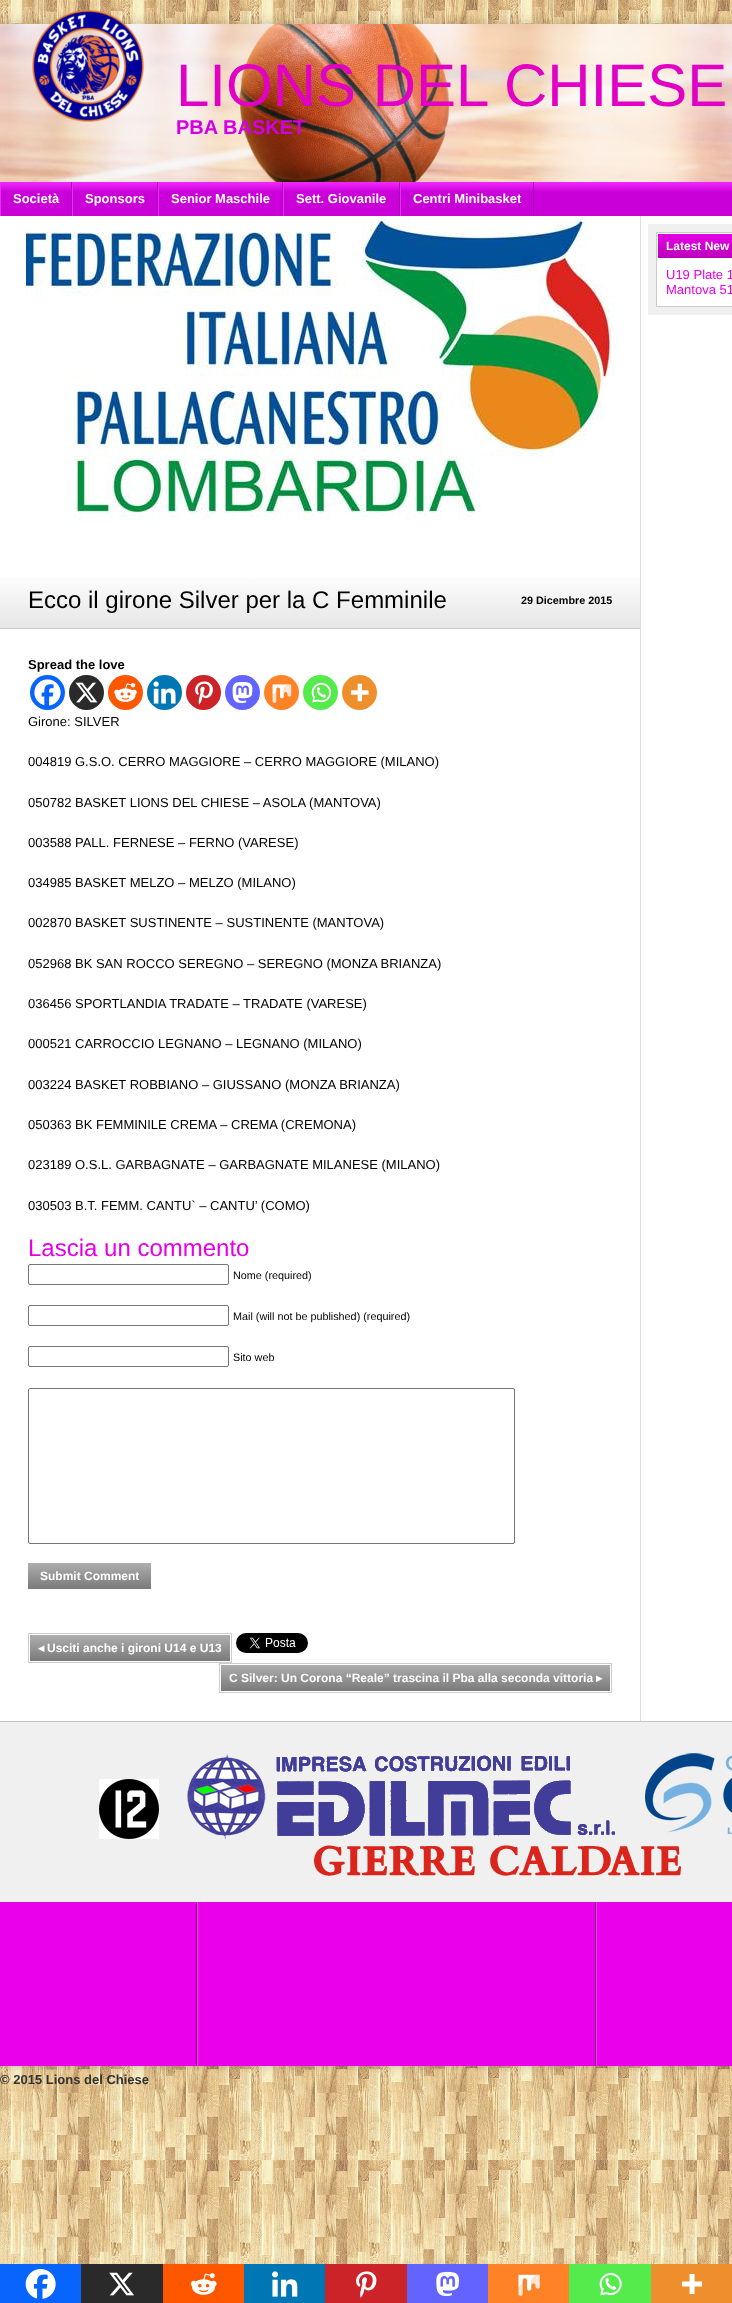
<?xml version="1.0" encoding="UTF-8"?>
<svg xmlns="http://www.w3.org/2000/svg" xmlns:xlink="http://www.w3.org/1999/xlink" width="732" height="2303">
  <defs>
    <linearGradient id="g1" gradientUnits="userSpaceOnUse" x1="0" y1="182" x2="0" y2="216"><stop offset="0" stop-color="#f228ff" /><stop offset="0.3" stop-color="#ca00d8" /></linearGradient>
    <linearGradient id="g2" gradientUnits="userSpaceOnUse" x1="658" y1="234" x2="658" y2="258"><stop offset="0" stop-color="#e500e5" /><stop offset="1" stop-color="#bd00bd" /></linearGradient>
    <linearGradient id="g3" gradientUnits="userSpaceOnUse" x1="0" y1="572" x2="0" y2="628"><stop offset="0" stop-color="#ffffff" /><stop offset="1" stop-color="#e6e6e6" /></linearGradient>
    <linearGradient id="g4" gradientUnits="userSpaceOnUse" x1="28" y1="1563" x2="28" y2="1589"><stop offset="0" stop-color="#aeaeae" /><stop offset="1" stop-color="#7a7a7a" /></linearGradient>
    <linearGradient id="g5" gradientUnits="userSpaceOnUse" x1="30" y1="1635" x2="30" y2="1661"><stop offset="0" stop-color="#aeaeae" /><stop offset="1" stop-color="#7a7a7a" /></linearGradient>
    <linearGradient id="g6" gradientUnits="userSpaceOnUse" x1="221" y1="1665" x2="221" y2="1691"><stop offset="0" stop-color="#aeaeae" /><stop offset="1" stop-color="#7a7a7a" /></linearGradient>
  </defs>
  <rect width="100%" height="100%" fill="#ffffff" />
  <image x="0" y="0" width="732" height="2264" xlink:href="image1.png" />
  <rect y="24" width="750" height="2042" fill="#000000" fill-opacity="0.2" filter="blur(6px)" />
  <rect y="216" width="732" height="1505" fill="#ffffff" />
  <image x="0" y="24" width="732" height="158" xlink:href="image2.png" />
  <image x="31" y="9" width="114" height="113" xlink:href="image3.png" />
  <rect x="1" y="182" width="731" height="34" fill="url(#g1)" />
  <rect x="71" y="182" width="1" height="34" fill="#a200b0" />
  <rect y="182" width="1" height="34" fill="#f228ff" />
  <rect x="157" y="182" width="1" height="34" fill="#a200b0" />
  <rect x="72" y="182" width="1" height="34" fill="#f228ff" />
  <rect x="282" y="182" width="1" height="34" fill="#a200b0" />
  <rect x="158" y="182" width="1" height="34" fill="#f228ff" />
  <rect x="399" y="182" width="1" height="34" fill="#a200b0" />
  <rect x="283" y="182" width="1" height="34" fill="#f228ff" />
  <rect x="533" y="182" width="1" height="34" fill="#a200b0" />
  <rect x="400" y="182" width="1" height="34" fill="#f228ff" />
  <rect x="640" y="216" width="1" height="1505" fill="#dfdfdf" />
  <rect x="648" y="224" width="84" height="91" fill="#f0f0f0" />
  <rect x="656.5" y="232.5" width="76" height="74" fill="#ffffff" stroke="#cccccc" />
  <rect x="658" y="234" width="74" height="24" fill="url(#g2)" />
  <image x="26" y="216" width="588" height="304" xlink:href="image4.png" />
  <rect y="578" width="640" height="50" fill="url(#g3)" />
  <rect y="628" width="640" height="1" fill="#cccccc" />
  <circle cx="47.5" cy="692.5" r="17.5" fill="#0765fe" />
  <image x="34" y="679" width="27" height="27" xlink:href="image5.png" />
  <circle cx="86.5" cy="692.5" r="17.5" fill="#2a2a2a" />
  <image x="75" y="682" width="23" height="21" xlink:href="image6.png" />
  <circle cx="125.5" cy="692.5" r="17.5" fill="#ff5700" />
  <image x="114" y="683" width="23" height="19" xlink:href="image7.png" />
  <circle cx="164.5" cy="692.5" r="17.5" fill="#0077b5" />
  <image x="153" y="681" width="23" height="23" xlink:href="image8.png" />
  <circle cx="203.5" cy="692.5" r="17.5" fill="#cc2329" />
  <image x="195" y="681" width="18" height="24" xlink:href="image9.png" />
  <circle cx="242.5" cy="692.5" r="17.5" fill="#6364ff" />
  <image x="232" y="681" width="21" height="23" xlink:href="image10.png" />
  <circle cx="281.5" cy="692.5" r="17.5" fill="#ff8226" />
  <image x="272" y="684" width="20" height="19" xlink:href="image11.png" />
  <circle cx="320.5" cy="692.5" r="17.5" fill="#55eb4c" />
  <image x="311" y="682" width="20" height="21" xlink:href="image12.png" />
  <circle cx="359.5" cy="692.5" r="17.5" fill="#ee8e2d" />
  <image x="351" y="683" width="18" height="19" xlink:href="image13.png" />
  <rect x="28.5" y="1264.5" width="200" height="20" rx="1.5" fill="none" stroke="#767676" />
  <rect x="28.5" y="1305.5" width="200" height="20" rx="1.5" fill="none" stroke="#767676" />
  <rect x="28.5" y="1346.5" width="200" height="20" rx="1.5" fill="none" stroke="#767676" />
  <rect x="28.5" y="1388.5" width="486" height="155" rx="1.5" fill="none" stroke="#767676" />
  <rect x="28" y="1563" width="123" height="26" fill="url(#g4)" />
  <rect y="2264" width="81" height="39" fill="#0765fe" />
  <image x="25" y="2269" width="31" height="30" xlink:href="image14.png" />
  <rect x="81" y="2264" width="82" height="39" fill="#2a2a2a" />
  <image x="109" y="2272" width="25" height="24" xlink:href="image15.png" />
  <rect x="163" y="2264" width="81" height="39" fill="#ff5700" />
  <image x="190" y="2273" width="27" height="22" xlink:href="image16.png" />
  <rect x="244" y="2264" width="81" height="39" fill="#0077b5" />
  <image x="272" y="2271" width="26" height="26" xlink:href="image17.png" />
  <rect x="325" y="2264" width="82" height="39" fill="#cc2329" />
  <image x="356" y="2271" width="21" height="27" xlink:href="image18.png" />
  <rect x="407" y="2264" width="81" height="39" fill="#6364ff" />
  <image x="436" y="2271" width="23" height="26" xlink:href="image19.png" />
  <rect x="488" y="2264" width="81" height="39" fill="#ff8226" />
  <image x="518" y="2274" width="22" height="22" xlink:href="image20.png" />
  <rect x="569" y="2264" width="82" height="39" fill="#55eb4c" />
  <image x="599" y="2273" width="23" height="23" xlink:href="image21.png" />
  <rect x="651" y="2264" width="81" height="39" fill="#ee8e2d" />
  <image x="682" y="2274" width="21" height="20" xlink:href="image22.png" />
  <image x="236" y="1633" width="72" height="20" xlink:href="image23.png" />
  <rect x="28.5" y="1633.5" width="203" height="29" fill="none" stroke="#cccccc" />
  <rect x="30" y="1635" width="200" height="26" fill="url(#g5)" />
  <rect x="219.5" y="1663.5" width="392" height="29" fill="none" stroke="#cccccc" />
  <rect x="221" y="1665" width="389" height="26" fill="url(#g6)" />
  <rect y="1722" width="732" height="180" fill="#f0f0f0" />
  <rect y="1721" width="732" height="1" fill="#c3c3c3" />
  <image x="99" y="1779" width="60" height="60" xlink:href="image24.png" />
  <image x="187" y="1754" width="428" height="85" xlink:href="image25.png" />
  <image x="645" y="1753" width="87" height="82" xlink:href="image26.png" />
  <image x="314" y="1845" width="367" height="31" xlink:href="image27.png" />
  <rect y="1902" width="732" height="164" fill="#ea00ea" />
  <image x="196" y="1902" width="401" height="164" xlink:href="image28.png" />
  <text x="176" y="106" style="font-family: Liberation Sans; font-size: 60px; fill: #e200c4">LIONS DEL CHIESE</text>
  <text x="176" y="134" style="font-family: Liberation Sans; font-size: 20px; font-weight: bold; fill: #d300e2">PBA BASKET</text>
  <text x="13" y="203" style="font-family: Liberation Sans; font-size: 13px; font-weight: bold; fill: #ffffff">Società</text>
  <text x="85" y="203" style="font-family: Liberation Sans; font-size: 13px; font-weight: bold; fill: #ffffff">Sponsors</text>
  <text x="171" y="203" style="font-family: Liberation Sans; font-size: 13px; font-weight: bold; fill: #ffffff">Senior Maschile</text>
  <text x="296" y="203" style="font-family: Liberation Sans; font-size: 13px; font-weight: bold; fill: #ffffff">Sett. Giovanile</text>
  <text x="413" y="203" style="font-family: Liberation Sans; font-size: 13px; font-weight: bold; fill: #ffffff">Centri Minibasket</text>
  <text x="666" y="250" style="font-family: Liberation Sans; font-size: 12px; font-weight: bold; fill: #ffffff">Latest New</text>
  <text x="666" y="279" style="font-family: Liberation Sans; font-size: 13px; fill: #e500e5">U19 Plate 1</text>
  <text x="666" y="294" style="font-family: Liberation Sans; font-size: 13px; fill: #e500e5">Mantova 51</text>
  <text x="28" y="608" style="font-family: Liberation Sans; font-size: 24px; fill: #000000">Ecco il girone Silver per la C Femminile</text>
  <text x="521" y="604" style="font-family: Liberation Sans; font-size: 10.8px; font-weight: bold; fill: #000000">29 Dicembre 2015</text>
  <text x="28" y="669" style="font-family: Liberation Sans; font-size: 13px; font-weight: bold; fill: #000000">Spread the love</text>
  <text x="28" y="726" style="font-family: Liberation Sans; font-size: 13px; fill: #000000">Girone: SILVER</text>
  <text x="28" y="766" style="font-family: Liberation Sans; font-size: 13px; fill: #000000">004819 G.S.O. CERRO MAGGIORE – CERRO MAGGIORE (MILANO)</text>
  <text x="28" y="807" style="font-family: Liberation Sans; font-size: 13px; fill: #000000">050782 BASKET LIONS DEL CHIESE – ASOLA (MANTOVA)</text>
  <text x="28" y="847" style="font-family: Liberation Sans; font-size: 13px; fill: #000000">003588 PALL. FERNESE – FERNO (VARESE)</text>
  <text x="28" y="887" style="font-family: Liberation Sans; font-size: 13px; fill: #000000">034985 BASKET MELZO – MELZO (MILANO)</text>
  <text x="28" y="927" style="font-family: Liberation Sans; font-size: 13px; fill: #000000">002870 BASKET SUSTINENTE – SUSTINENTE (MANTOVA)</text>
  <text x="28" y="968" style="font-family: Liberation Sans; font-size: 13px; fill: #000000">052968 BK SAN ROCCO SEREGNO – SEREGNO (MONZA BRIANZA)</text>
  <text x="28" y="1008" style="font-family: Liberation Sans; font-size: 13px; fill: #000000">036456 SPORTLANDIA TRADATE – TRADATE (VARESE)</text>
  <text x="28" y="1048" style="font-family: Liberation Sans; font-size: 13px; fill: #000000">000521 CARROCCIO LEGNANO – LEGNANO (MILANO)</text>
  <text x="28" y="1089" style="font-family: Liberation Sans; font-size: 13px; fill: #000000">003224 BASKET ROBBIANO – GIUSSANO (MONZA BRIANZA)</text>
  <text x="28" y="1129" style="font-family: Liberation Sans; font-size: 13px; fill: #000000">050363 BK FEMMINILE CREMA – CREMA (CREMONA)</text>
  <text x="28" y="1169" style="font-family: Liberation Sans; font-size: 13px; fill: #000000">023189 O.S.L. GARBAGNATE – GARBAGNATE MILANESE (MILANO)</text>
  <text x="28" y="1210" style="font-family: Liberation Sans; font-size: 13px; fill: #000000">030503 B.T. FEMM. CANTU` – CANTU’ (COMO)</text>
  <text x="28" y="1256" style="font-family: Liberation Sans; font-size: 24px; fill: #e500e5">Lascia un commento</text>
  <text x="233" y="1279" style="font-family: Liberation Sans; font-size: 10.8px; fill: #000000">Nome (required)</text>
  <text x="233" y="1320" style="font-family: Liberation Sans; font-size: 10.8px; fill: #000000">Mail (will not be published) (required)</text>
  <text x="233" y="1361" style="font-family: Liberation Sans; font-size: 10.8px; fill: #000000">Sito web</text>
  <text x="40" y="1580" style="font-family: Liberation Sans; font-size: 12px; font-weight: bold; fill: #ffffff">Submit Comment</text>
  <text x="38" y="1652" style="font-family: DejaVu Sans; font-size: 12px; font-weight: bold; fill: #ffffff">◂</text>
  <text x="47" y="1652" style="font-family: Liberation Sans; font-size: 12px; font-weight: bold; fill: #ffffff">Usciti anche i gironi U14 e U13</text>
  <text x="229" y="1682" style="font-family: Liberation Sans; font-size: 12px; font-weight: bold; fill: #ffffff">C Silver: Un Corona “Reale” trascina il Pba alla seconda vittoria</text>
  <text x="596" y="1682" style="font-family: DejaVu Sans; font-size: 12px; font-weight: bold; fill: #ffffff">▸</text>
  <text x="0" y="2084" style="font-family: Liberation Sans; font-size: 13px; font-weight: bold; fill: #333333">© 2015 Lions del Chiese</text>
</svg>
